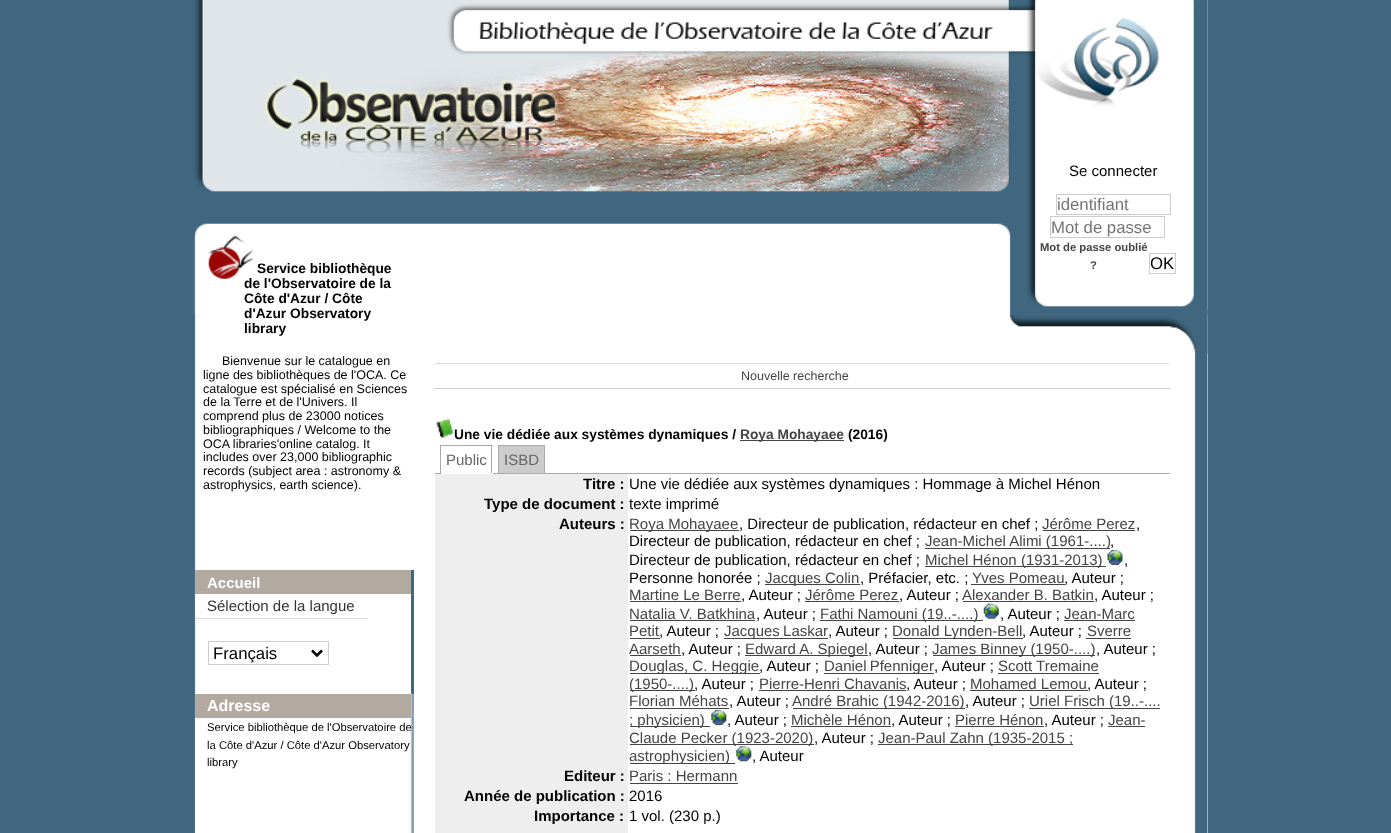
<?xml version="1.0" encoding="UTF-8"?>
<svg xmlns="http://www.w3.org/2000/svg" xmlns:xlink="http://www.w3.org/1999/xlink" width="1391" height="833">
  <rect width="100%" height="100%" fill="#40677f" />
  <rect x="1207" width="1" height="833" fill="#ffffff" />
  <image x="185" y="0" width="1023" height="833" xlink:href="image3.png" />
  <image x="1009" y="310" width="199" height="44" xlink:href="image4.png" />
  <image x="193" y="0" width="1015" height="315" xlink:href="image5.png" />
  <rect x="1056.5" y="194.5" width="114" height="20" fill="none" stroke="#cccccc" />
  <rect x="1050.5" y="216.5" width="114" height="21" fill="none" stroke="#cccccc" />
  <rect x="1149.5" y="253.5" width="26" height="20" fill="none" stroke="#cccccc" />
  <rect x="411" y="570" width="3" height="124" fill="#40677f" />
  <rect x="195" y="570" width="216" height="24" fill="#b2aaa1" />
  <rect x="195" y="594" width="1" height="24" fill="#ffffff" />
  <rect x="195" y="618" width="173" height="1" fill="#dddddd" />
  <rect x="208.5" y="641.5" width="120" height="23" fill="none" stroke="#cccccc" />
  <path d="M 312 650.5 l 5 5 l 5 -5" fill="none" stroke="#000000" stroke-width="2.5" />
  <image x="195" y="693" width="219" height="140" xlink:href="image1.png" />
  <rect x="195" y="694" width="216" height="24" fill="#b2aaa1" />
  <image x="208" y="235" width="46" height="44" xlink:href="image2.png" />
  <rect x="435" y="363" width="735" height="1" fill="#dddddd" />
  <rect x="1169" y="363" width="1" height="1" fill="#ffffff" />
  <rect x="434" y="388" width="736" height="1" fill="#cccccc" />
  <image x="436" y="418" width="17" height="20" xlink:href="image6.png" />
  <rect x="740" y="440" width="104" height="1" fill="#444444" />
  <rect x="435" y="473" width="735" height="1" fill="#aaaaaa" />
  <rect x="440" y="445" width="53" height="1" fill="#aaaaaa" />
  <rect x="491" y="445" width="1" height="29" fill="#aaaaaa" />
  <rect x="440" y="473" width="53" height="1" fill="#ffffff" />
  <rect x="440" y="445" width="1" height="29" fill="#aaaaaa" />
  <rect x="498.5" y="445.5" width="46" height="28" fill="#cccccc" stroke="#aaaaaa" />
  <rect x="435" y="474" width="193" height="359" fill="#eeeeee" />
  <rect x="630" y="530" width="109" height="1" fill="#444444" />
  <rect x="1043" y="530" width="92" height="1" fill="#444444" />
  <rect x="925" y="548" width="185" height="1" fill="#444444" />
  <rect x="925" y="566" width="181" height="1" fill="#444444" />
  <image x="1107" y="550" width="16" height="15" xlink:href="image7.png" />
  <rect x="765" y="584" width="95" height="1" fill="#444444" />
  <rect x="971" y="584" width="94" height="1" fill="#444444" />
  <rect x="630" y="601" width="111" height="1" fill="#444444" />
  <rect x="805" y="601" width="94" height="1" fill="#444444" />
  <rect x="963" y="601" width="131" height="1" fill="#444444" />
  <rect x="630" y="620" width="125" height="1" fill="#444444" />
  <rect x="820" y="620" width="163" height="1" fill="#444444" />
  <image x="983" y="603" width="16" height="16" xlink:href="image8.png" />
  <rect x="1064" y="620" width="71" height="1" fill="#444444" />
  <rect x="630" y="638" width="30" height="1" fill="#444444" />
  <rect x="724" y="638" width="104" height="1" fill="#444444" />
  <rect x="893" y="638" width="130" height="1" fill="#444444" />
  <rect x="1086" y="638" width="45" height="1" fill="#444444" />
  <rect x="630" y="655" width="51" height="1" fill="#444444" />
  <rect x="745" y="655" width="123" height="1" fill="#444444" />
  <rect x="933" y="655" width="162" height="1" fill="#444444" />
  <rect x="630" y="673" width="130" height="1" fill="#444444" />
  <rect x="824" y="673" width="110" height="1" fill="#444444" />
  <rect x="998" y="673" width="101" height="1" fill="#444444" />
  <rect x="630" y="690" width="65" height="1" fill="#444444" />
  <rect x="759" y="690" width="147" height="1" fill="#444444" />
  <rect x="970" y="690" width="118" height="1" fill="#444444" />
  <rect x="630" y="708" width="99" height="1" fill="#444444" />
  <rect x="793" y="708" width="172" height="1" fill="#444444" />
  <rect x="1029" y="708" width="131" height="1" fill="#444444" />
  <rect x="630" y="726" width="80" height="1" fill="#444444" />
  <image x="711" y="710" width="16" height="15" xlink:href="image9.png" />
  <rect x="791" y="726" width="100" height="1" fill="#444444" />
  <rect x="955" y="726" width="89" height="1" fill="#444444" />
  <rect x="1108" y="726" width="37" height="1" fill="#444444" />
  <rect x="630" y="744" width="184" height="1" fill="#444444" />
  <rect x="878" y="744" width="195" height="1" fill="#444444" />
  <rect x="630" y="763" width="105" height="1" fill="#444444" />
  <rect x="630" y="783" width="108" height="1" fill="#444444" />
  <text x="1069" y="176" style="font-family: Liberation Sans; font-size: 15px; fill: #000000">Se connecter</text>
  <text x="1057" y="210" style="font-family: Liberation Sans; font-size: 16.75px; fill: #757575">identifiant</text>
  <text x="1051" y="233" style="font-family: Liberation Sans; font-size: 16.75px; fill: #757575">Mot de passe</text>
  <text x="1150" y="269" style="font-family: Liberation Sans; font-size: 16.75px; fill: #000000">OK</text>
  <text x="1040" y="251" style="font-family: Liberation Sans; font-size: 11.25px; font-weight: bold; fill: #444444">Mot de passe oublié</text>
  <text x="1090" y="269" style="font-family: Liberation Sans; font-size: 11.25px; font-weight: bold; fill: #444444">?</text>
  <text x="207" y="588" style="font-family: Liberation Sans; font-size: 15px; font-weight: bold; fill: #ffffff">Accueil</text>
  <text x="207" y="611" style="font-family: Liberation Sans; font-size: 15px; fill: #333333">Sélection de la langue</text>
  <text x="213" y="659" style="font-family: Liberation Sans; font-size: 16.75px; fill: #000000">Français</text>
  <text x="207" y="711" style="font-family: Liberation Sans; font-size: 16px; font-weight: bold; fill: #ffffff">Adresse</text>
  <text x="207" y="731" style="font-family: Liberation Sans; font-size: 11.25px; fill: #000000">Service bibliothèque de l'Observatoire de</text>
  <text x="207" y="749" style="font-family: Liberation Sans; font-size: 11.25px; fill: #000000">la Côte d'Azur / Côte d'Azur Observatory</text>
  <text x="207" y="766" style="font-family: Liberation Sans; font-size: 11.25px; fill: #000000">library</text>
  <text x="257" y="273" style="font-family: Liberation Sans; font-size: 13.75px; font-weight: bold; fill: #000000">Service bibliothèque</text>
  <text x="244" y="288" style="font-family: Liberation Sans; font-size: 13.75px; font-weight: bold; fill: #000000">de l'Observatoire de la</text>
  <text x="244" y="303" style="font-family: Liberation Sans; font-size: 13.75px; font-weight: bold; fill: #000000">Côte d'Azur / Côte</text>
  <text x="244" y="318" style="font-family: Liberation Sans; font-size: 13.75px; font-weight: bold; fill: #000000">d'Azur Observatory</text>
  <text x="244" y="333" style="font-family: Liberation Sans; font-size: 13.75px; font-weight: bold; fill: #000000">library</text>
  <text x="222" y="365" style="font-family: Liberation Sans; font-size: 12.5px; fill: #000000">Bienvenue sur le catalogue en</text>
  <text x="203" y="379" style="font-family: Liberation Sans; font-size: 12.5px; fill: #000000">ligne des bibliothèques de l'OCA. Ce</text>
  <text x="203" y="393" style="font-family: Liberation Sans; font-size: 12.5px; fill: #000000">catalogue est spécialisé en Sciences</text>
  <text x="203" y="406" style="font-family: Liberation Sans; font-size: 12.5px; fill: #000000">de la Terre et de l'Univers. Il</text>
  <text x="203" y="420" style="font-family: Liberation Sans; font-size: 12.5px; fill: #000000">comprend plus de 23000 notices</text>
  <text x="203" y="434" style="font-family: Liberation Sans; font-size: 12.5px; fill: #000000">bibliographiques / Welcome to the</text>
  <text x="203" y="448" style="font-family: Liberation Sans; font-size: 12.5px; fill: #000000">OCA libraries'online catalog. It</text>
  <text x="203" y="461" style="font-family: Liberation Sans; font-size: 12.5px; fill: #000000">includes over 23,000 bibliographic</text>
  <text x="203" y="475" style="font-family: Liberation Sans; font-size: 12.5px; fill: #000000">records (subject area : astronomy &amp;</text>
  <text x="203" y="489" style="font-family: Liberation Sans; font-size: 12.5px; fill: #000000">astrophysics, earth science).</text>
  <text x="741" y="380" style="font-family: Liberation Sans; font-size: 12.5px; fill: #444444">Nouvelle recherche</text>
  <text x="454" y="439" style="font-family: Liberation Sans; font-size: 13.75px; font-weight: bold; fill: #000000">Une vie dédiée aux systèmes dynamiques /</text>
  <text x="740" y="439" style="font-family: Liberation Sans; font-size: 13.75px; font-weight: bold; fill: #444444">Roya Mohayaee</text>
  <text x="848" y="439" style="font-family: Liberation Sans; font-size: 13.75px; font-weight: bold; fill: #000000">(2016)</text>
  <text x="446" y="465" style="font-family: Liberation Sans; font-size: 15px; fill: #666666">Public</text>
  <text x="504" y="465" style="font-family: Liberation Sans; font-size: 15px; fill: #666666">ISBD</text>
  <text x="583" y="489" style="font-family: Liberation Sans; font-size: 15px; font-weight: bold; fill: #000000">Titre :</text>
  <text x="629" y="489" style="font-family: Liberation Sans; font-size: 15px; fill: #000000">Une vie dédiée aux systèmes dynamiques : Hommage à Michel Hénon</text>
  <text x="484" y="509" style="font-family: Liberation Sans; font-size: 15px; font-weight: bold; fill: #000000">Type de document :</text>
  <text x="629" y="509" style="font-family: Liberation Sans; font-size: 15px; fill: #000000">texte imprimé</text>
  <text x="559" y="529" style="font-family: Liberation Sans; font-size: 15px; font-weight: bold; fill: #000000">Auteurs :</text>
  <text x="629" y="529" style="font-family: Liberation Sans; font-size: 15px; fill: #444444">Roya Mohayaee</text>
  <text x="739" y="529" style="font-family: Liberation Sans; font-size: 15px; fill: #000000">, Directeur de publication, rédacteur en chef ;</text>
  <text x="1042" y="529" style="font-family: Liberation Sans; font-size: 15px; fill: #444444">Jérôme Perez</text>
  <text x="1136" y="529" style="font-family: Liberation Sans; font-size: 15px; fill: #000000">,</text>
  <text x="629" y="546" style="font-family: Liberation Sans; font-size: 15px; fill: #000000">Directeur de publication, rédacteur en chef ;</text>
  <text x="925" y="546" style="font-family: Liberation Sans; font-size: 15px; fill: #444444">Jean-Michel Alimi (1961-....)</text>
  <text x="1110" y="546" style="font-family: Liberation Sans; font-size: 15px; fill: #000000">,</text>
  <text x="629" y="565" style="font-family: Liberation Sans; font-size: 15px; fill: #000000">Directeur de publication, rédacteur en chef ;</text>
  <text x="925" y="565" style="font-family: Liberation Sans; font-size: 15px; fill: #444444">Michel Hénon (1931-2013)</text>
  <text x="1124" y="565" style="font-family: Liberation Sans; font-size: 15px; fill: #000000">,</text>
  <text x="629" y="583" style="font-family: Liberation Sans; font-size: 15px; fill: #000000">Personne honorée ;</text>
  <text x="765" y="583" style="font-family: Liberation Sans; font-size: 15px; fill: #444444">Jacques Colin</text>
  <text x="860" y="583" style="font-family: Liberation Sans; font-size: 15px; fill: #000000">, Préfacier, etc. ;</text>
  <text x="972" y="583" style="font-family: Liberation Sans; font-size: 15px; fill: #444444">Yves Pomeau</text>
  <text x="1064" y="583" style="font-family: Liberation Sans; font-size: 15px; fill: #000000">, Auteur ;</text>
  <text x="629" y="600" style="font-family: Liberation Sans; font-size: 15px; fill: #444444">Martine Le Berre</text>
  <text x="741" y="600" style="font-family: Liberation Sans; font-size: 15px; fill: #000000">, Auteur ;</text>
  <text x="805" y="600" style="font-family: Liberation Sans; font-size: 15px; fill: #444444">Jérôme Perez</text>
  <text x="899" y="600" style="font-family: Liberation Sans; font-size: 15px; fill: #000000">, Auteur ;</text>
  <text x="962" y="600" style="font-family: Liberation Sans; font-size: 15px; fill: #444444">Alexander B. Batkin</text>
  <text x="1094" y="600" style="font-family: Liberation Sans; font-size: 15px; fill: #000000">, Auteur ;</text>
  <text x="629" y="619" style="font-family: Liberation Sans; font-size: 15px; fill: #444444">Natalia V. Batkhina</text>
  <text x="756" y="619" style="font-family: Liberation Sans; font-size: 15px; fill: #000000">, Auteur ;</text>
  <text x="820" y="619" style="font-family: Liberation Sans; font-size: 15px; fill: #444444">Fathi Namouni (19..-....)</text>
  <text x="1000" y="619" style="font-family: Liberation Sans; font-size: 15px; fill: #000000">, Auteur ;</text>
  <text x="1064" y="619" style="font-family: Liberation Sans; font-size: 15px; fill: #444444">Jean-Marc</text>
  <text x="629" y="636" style="font-family: Liberation Sans; font-size: 15px; fill: #444444">Petit</text>
  <text x="659" y="636" style="font-family: Liberation Sans; font-size: 15px; fill: #000000">, Auteur ;</text>
  <text x="724" y="636" word-spacing="-1" style="font-family: Liberation Sans; font-size: 15px; fill: #444444">Jacques Laskar</text>
  <text x="828" y="636" style="font-family: Liberation Sans; font-size: 15px; fill: #000000">, Auteur ;</text>
  <text x="892" y="636" style="font-family: Liberation Sans; font-size: 15px; fill: #444444">Donald Lynden-Bell</text>
  <text x="1022" y="636" style="font-family: Liberation Sans; font-size: 15px; fill: #000000">, Auteur ;</text>
  <text x="1087" y="636" style="font-family: Liberation Sans; font-size: 15px; fill: #444444">Sverre</text>
  <text x="629" y="654" style="font-family: Liberation Sans; font-size: 15px; fill: #444444">Aarseth</text>
  <text x="681" y="654" style="font-family: Liberation Sans; font-size: 15px; fill: #000000">, Auteur ;</text>
  <text x="745" y="654" style="font-family: Liberation Sans; font-size: 15px; fill: #444444">Edward A. Spiegel</text>
  <text x="868" y="654" style="font-family: Liberation Sans; font-size: 15px; fill: #000000">, Auteur ;</text>
  <text x="932" y="654" style="font-family: Liberation Sans; font-size: 15px; fill: #444444">James Binney (1950-....)</text>
  <text x="1096" y="654" style="font-family: Liberation Sans; font-size: 15px; fill: #000000">, Auteur ;</text>
  <text x="629" y="671" style="font-family: Liberation Sans; font-size: 15px; fill: #444444">Douglas, C. Heggie</text>
  <text x="759" y="671" style="font-family: Liberation Sans; font-size: 15px; fill: #000000">, Auteur ;</text>
  <text x="824" y="671" word-spacing="-1" style="font-family: Liberation Sans; font-size: 15px; fill: #444444">Daniel Pfenniger</text>
  <text x="934" y="671" style="font-family: Liberation Sans; font-size: 15px; fill: #000000">, Auteur ;</text>
  <text x="998" y="671" style="font-family: Liberation Sans; font-size: 15px; fill: #444444">Scott Tremaine</text>
  <text x="629" y="689" style="font-family: Liberation Sans; font-size: 15px; fill: #444444">(1950-....)</text>
  <text x="694" y="689" style="font-family: Liberation Sans; font-size: 15px; fill: #000000">, Auteur ;</text>
  <text x="759" y="689" style="font-family: Liberation Sans; font-size: 15px; fill: #444444">Pierre-Henri Chavanis</text>
  <text x="906" y="689" style="font-family: Liberation Sans; font-size: 15px; fill: #000000">, Auteur ;</text>
  <text x="970" y="689" style="font-family: Liberation Sans; font-size: 15px; fill: #444444">Mohamed Lemou</text>
  <text x="1087" y="689" style="font-family: Liberation Sans; font-size: 15px; fill: #000000">, Auteur ;</text>
  <text x="629" y="706" style="font-family: Liberation Sans; font-size: 15px; fill: #444444">Florian Méhats</text>
  <text x="729" y="706" style="font-family: Liberation Sans; font-size: 15px; fill: #000000">, Auteur ;</text>
  <text x="792" y="706" style="font-family: Liberation Sans; font-size: 15px; fill: #444444">André Brahic (1942-2016)</text>
  <text x="965" y="706" style="font-family: Liberation Sans; font-size: 15px; fill: #000000">, Auteur ;</text>
  <text x="1029" y="706" style="font-family: Liberation Sans; font-size: 15px; fill: #444444">Uriel Frisch (19..-....</text>
  <text x="629" y="725" style="font-family: Liberation Sans; font-size: 15px; fill: #444444">; physicien)</text>
  <text x="727" y="725" style="font-family: Liberation Sans; font-size: 15px; fill: #000000">, Auteur ;</text>
  <text x="791" y="725" style="font-family: Liberation Sans; font-size: 15px; fill: #444444">Michèle Hénon</text>
  <text x="891" y="725" style="font-family: Liberation Sans; font-size: 15px; fill: #000000">, Auteur ;</text>
  <text x="955" y="725" style="font-family: Liberation Sans; font-size: 15px; fill: #444444">Pierre Hénon</text>
  <text x="1044" y="725" style="font-family: Liberation Sans; font-size: 15px; fill: #000000">, Auteur ;</text>
  <text x="1108" y="725" style="font-family: Liberation Sans; font-size: 15px; fill: #444444">Jean-</text>
  <text x="629" y="743" style="font-family: Liberation Sans; font-size: 15px; fill: #444444">Claude Pecker (1923-2020)</text>
  <text x="814" y="743" style="font-family: Liberation Sans; font-size: 15px; fill: #000000">, Auteur ;</text>
  <text x="878" y="743" style="font-family: Liberation Sans; font-size: 15px; fill: #444444">Jean-Paul Zahn (1935-2015 ;</text>
  <text x="629" y="761" style="font-family: Liberation Sans; font-size: 15px; fill: #444444">astrophysicien)</text>
  <image x="736" y="746" width="16" height="16" xlink:href="image10.png" />
  <text x="752" y="761" style="font-family: Liberation Sans; font-size: 15px; fill: #000000">, Auteur</text>
  <text x="564" y="781" style="font-family: Liberation Sans; font-size: 15px; font-weight: bold; fill: #000000">Editeur :</text>
  <text x="629" y="781" style="font-family: Liberation Sans; font-size: 15px; fill: #444444">Paris : Hermann</text>
  <text x="464" y="801" style="font-family: Liberation Sans; font-size: 15px; font-weight: bold; fill: #000000">Année de publication :</text>
  <text x="629" y="801" style="font-family: Liberation Sans; font-size: 15px; fill: #000000">2016</text>
  <text x="534" y="821" style="font-family: Liberation Sans; font-size: 15px; font-weight: bold; fill: #000000">Importance :</text>
  <text x="629" y="821" style="font-family: Liberation Sans; font-size: 15px; fill: #000000">1 vol. (230 p.)</text>
</svg>
